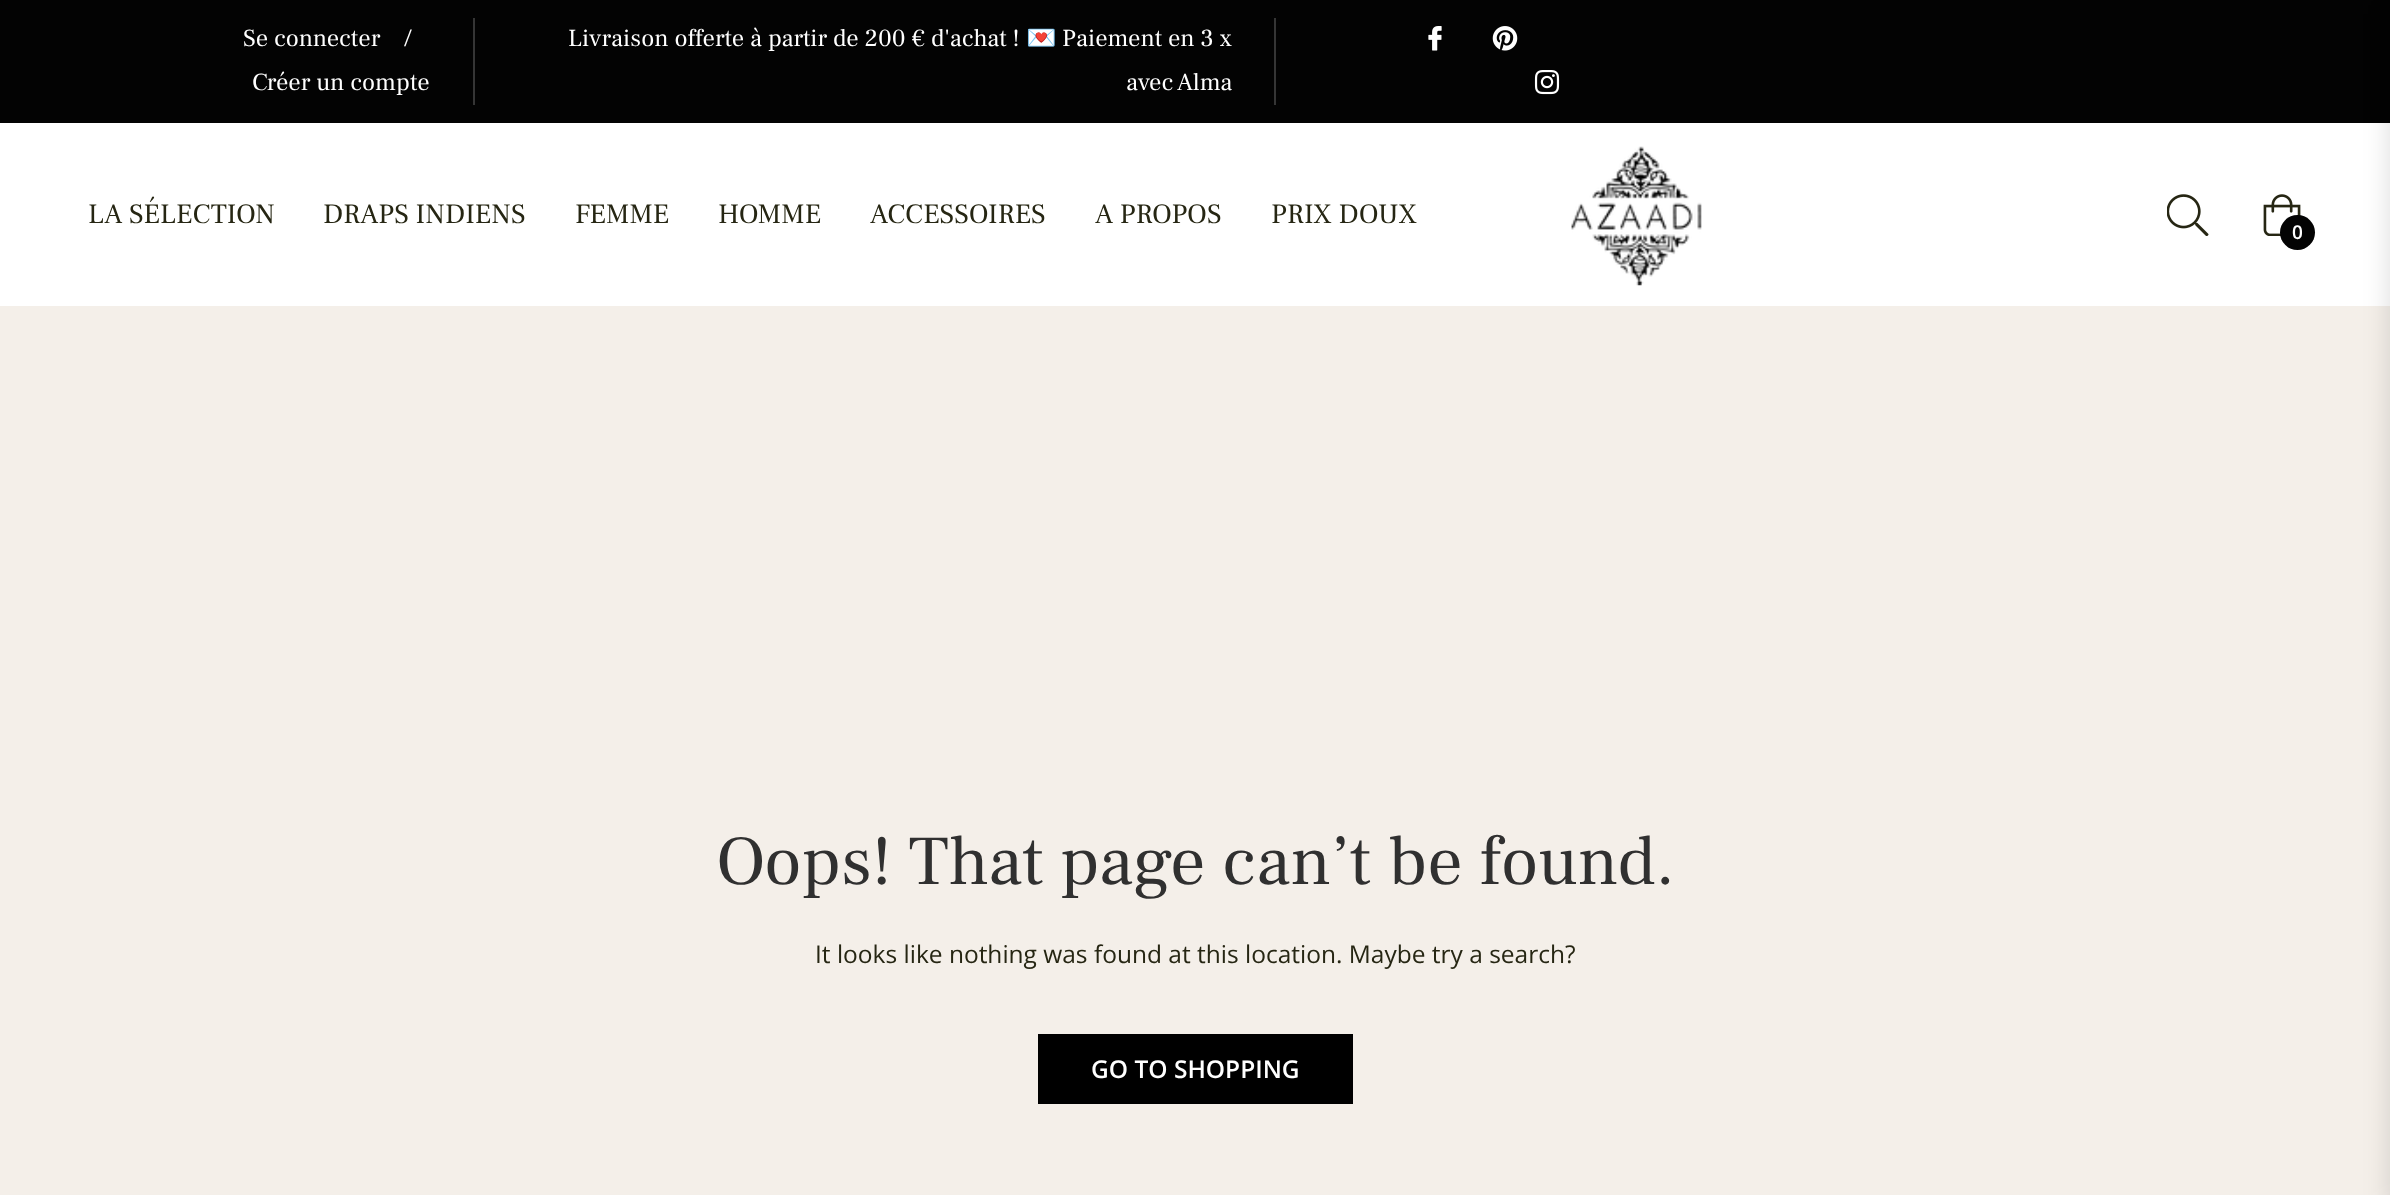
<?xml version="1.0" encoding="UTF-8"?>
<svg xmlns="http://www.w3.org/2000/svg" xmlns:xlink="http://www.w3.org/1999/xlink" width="2390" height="1195">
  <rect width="100%" height="100%" fill="#ffffff" />
  <rect width="2390" height="123" fill="#030303" />
  <rect x="473" y="18" width="2" height="87" fill="#353535" />
  <rect x="1274" y="18" width="2" height="87" fill="#353535" />
  <image x="1428" y="26" width="14" height="25" xlink:href="image1.png" />
  <image x="1492" y="26" width="26" height="25" xlink:href="image2.png" />
  <image x="1534" y="70" width="26" height="25" xlink:href="image3.png" />
  <image x="1571" y="146" width="131" height="140" xlink:href="image4.png" />
  <image x="2167" y="194" width="42" height="42" xlink:href="image5.png" />
  <image x="2263" y="194" width="38" height="42" xlink:href="image6.png" />
  <circle cx="2297.5" cy="232.5" r="17.5" fill="#030303" />
  <rect y="306" width="2390" height="889" fill="#f4efe9" />
  <rect x="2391" y="14" width="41" height="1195" fill="#000000" fill-opacity="0.15" filter="blur(14px)" />
  <rect x="1038" y="1034" width="315" height="70" fill="#000000" />
  <text x="243" y="46" style="font-family: Frank Ruhl Libre; font-size: 24.5px; fill: #ffffff">Se connecter</text>
  <text x="404" y="46" style="font-family: Frank Ruhl Libre; font-size: 24.5px; fill: #ffffff">/</text>
  <text x="252" y="90" style="font-family: Frank Ruhl Libre; font-size: 24.5px; fill: #ffffff">Créer un compte</text>
  <text x="568" y="46" style="font-family: Frank Ruhl Libre; font-size: 24.5px; fill: #ffffff">Livraison offerte à partir de 200 € d'achat !</text>
  <text x="1026" y="46" style="font-family: Noto Color Emoji; font-size: 24.5px; fill: #ffffff">💌</text>
  <text x="1062" y="46" style="font-family: Frank Ruhl Libre; font-size: 24.5px; fill: #ffffff">Paiement en 3 x</text>
  <text x="1126" y="90" style="font-family: Frank Ruhl Libre; font-size: 24.5px; fill: #ffffff">avec Alma</text>
  <text x="88" y="223" style="font-family: Frank Ruhl Libre; font-size: 28px; fill: #262613">LA SÉLECTION</text>
  <text x="323" y="223" style="font-family: Frank Ruhl Libre; font-size: 28px; fill: #262613">DRAPS INDIENS</text>
  <text x="575" y="223" style="font-family: Frank Ruhl Libre; font-size: 28px; fill: #262613">FEMME</text>
  <text x="718" y="223" style="font-family: Frank Ruhl Libre; font-size: 28px; fill: #262613">HOMME</text>
  <text x="870" y="223" style="font-family: Frank Ruhl Libre; font-size: 28px; fill: #262613">ACCESSOIRES</text>
  <text x="1095" y="223" style="font-family: Frank Ruhl Libre; font-size: 28px; fill: #262613">A PROPOS</text>
  <text x="1271" y="223" style="font-family: Frank Ruhl Libre; font-size: 28px; fill: #262613">PRIX DOUX</text>
  <text x="2292" y="239" style="font-family: Open Sans; font-size: 19px; font-weight: 600; fill: #ffffff">0</text>
  <text x="716" y="884" style="font-family: Frank Ruhl Libre; font-size: 70px; fill: #303030">Oops! That page can’t be found.</text>
  <text x="815" y="963" style="font-family: Open Sans; font-size: 24.5px; fill: #262613">It looks like nothing was found at this location. Maybe try a search?</text>
  <text x="1091" y="1078" style="font-family: Open Sans; font-size: 24.5px; font-weight: 600; fill: #ffffff">GO TO SHOPPING</text>
</svg>
